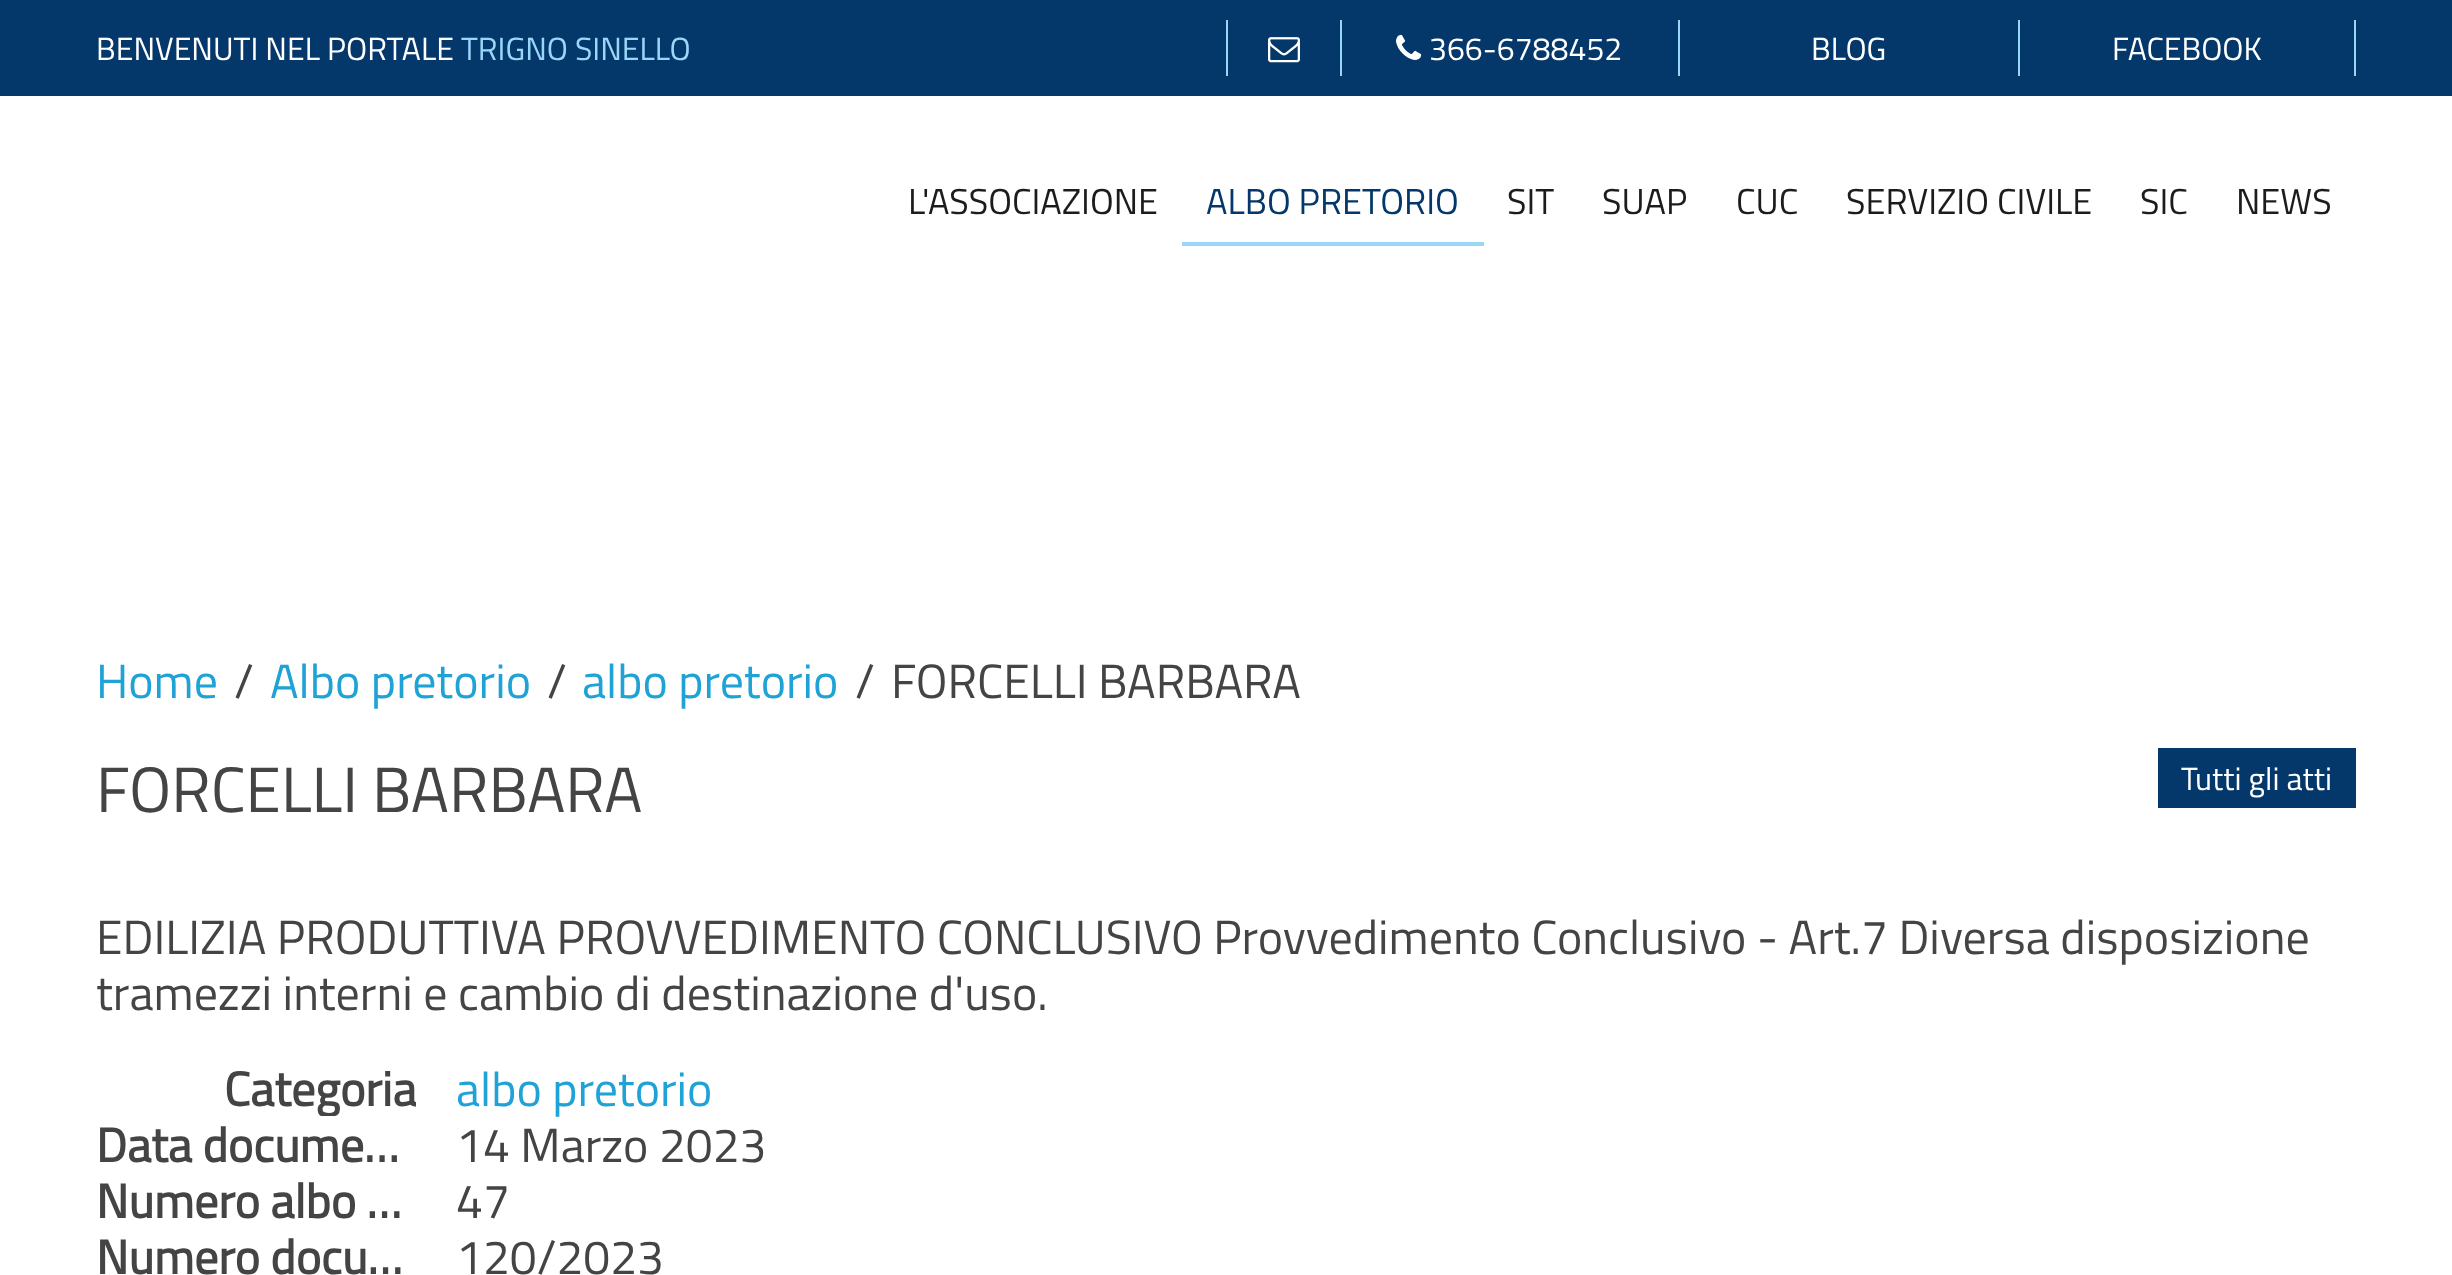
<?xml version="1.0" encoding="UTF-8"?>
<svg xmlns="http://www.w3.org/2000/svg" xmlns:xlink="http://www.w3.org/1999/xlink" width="2452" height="1275">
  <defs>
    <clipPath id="clip1"><rect x="96" y="1060" width="320" height="56" /></clipPath>
  </defs>
  <rect width="100%" height="100%" fill="#ffffff" />
  <rect width="2452" height="96" fill="#04376a" />
  <rect x="1226" y="20" width="2" height="56" fill="#99d7f9" />
  <image x="1268" y="37" width="32" height="26" xlink:href="image1.png" />
  <rect x="1340" y="20" width="2" height="56" fill="#99d7f9" />
  <image x="1396" y="34" width="26" height="26" xlink:href="image2.png" />
  <rect x="1678" y="20" width="2" height="56" fill="#99d7f9" />
  <rect x="2354" y="20" width="2" height="56" fill="#99d7f9" />
  <rect x="2018" y="20" width="2" height="56" fill="#99d7f9" />
  <rect x="1182" y="242" width="302" height="4" fill="#99d7f9" />
  <rect x="2158" y="748" width="198" height="60" fill="#04376a" />
  <text x="96" y="60" style="font-family: Titillium Web; font-size: 32px; fill: #ffffff">BENVENUTI NEL PORTALE</text>
  <text x="461" y="60" style="font-family: Titillium Web; font-size: 32px; fill: #99d7f9">TRIGNO SINELLO</text>
  <text x="1429" y="60" style="font-family: Titillium Web; font-size: 32px; fill: #ffffff">366-6788452</text>
  <text x="1811" y="60" style="font-family: Titillium Web; font-size: 32px; fill: #ffffff">BLOG</text>
  <text x="2112" y="60" style="font-family: Titillium Web; font-size: 32px; fill: #ffffff">FACEBOOK</text>
  <text x="908" y="214" style="font-family: Titillium Web; font-size: 36px; fill: #1c1c1c">L'ASSOCIAZIONE</text>
  <text x="1206" y="214" style="font-family: Titillium Web; font-size: 36px; fill: #04376a">ALBO PRETORIO</text>
  <text x="1507" y="214" style="font-family: Titillium Web; font-size: 36px; fill: #1c1c1c">SIT</text>
  <text x="1602" y="214" style="font-family: Titillium Web; font-size: 36px; fill: #1c1c1c">SUAP</text>
  <text x="1736" y="214" style="font-family: Titillium Web; font-size: 36px; fill: #1c1c1c">CUC</text>
  <text x="1846" y="214" style="font-family: Titillium Web; font-size: 36px; fill: #1c1c1c">SERVIZIO CIVILE</text>
  <text x="2140" y="214" style="font-family: Titillium Web; font-size: 36px; fill: #1c1c1c">SIC</text>
  <text x="2236" y="214" style="font-family: Titillium Web; font-size: 36px; fill: #1c1c1c">NEWS</text>
  <text x="96" y="698" style="font-family: Titillium Web; font-size: 48px; fill: #1fa2d6">Home</text>
  <text x="234" y="698" style="font-family: Titillium Web; font-size: 48px; fill: #444444">/</text>
  <text x="270" y="698" style="font-family: Titillium Web; font-size: 48px; fill: #1fa2d6">Albo pretorio</text>
  <text x="547" y="698" style="font-family: Titillium Web; font-size: 48px; fill: #444444">/</text>
  <text x="582" y="698" style="font-family: Titillium Web; font-size: 48px; fill: #1fa2d6">albo pretorio</text>
  <text x="855" y="698" style="font-family: Titillium Web; font-size: 48px; fill: #444444">/</text>
  <text x="891" y="698" style="font-family: Titillium Web; font-size: 48px; fill: #444444">FORCELLI BARBARA</text>
  <text x="96" y="812" style="font-family: Titillium Web; font-size: 64px; fill: #444444">FORCELLI BARBARA</text>
  <text x="2181" y="790" style="font-family: Titillium Web; font-size: 32px; fill: #ffffff">Tutti gli atti</text>
  <text x="96" y="954" style="font-family: Titillium Web; font-size: 48px; fill: #444444">EDILIZIA PRODUTTIVA PROVVEDIMENTO CONCLUSIVO Provvedimento Conclusivo - Art.7 Diversa disposizione</text>
  <text x="96" y="1010" style="font-family: Titillium Web; font-size: 48px; fill: #444444">tramezzi interni e cambio di destinazione d'uso.</text>
  <g clip-path="url(#clip1)">
    <text x="224" y="1106" style="font-family: Titillium Web; font-size: 48px; font-weight: bold; fill: #444444">Categoria</text>
  </g>
  <text x="456" y="1106" style="font-family: Titillium Web; font-size: 48px; fill: #1fa2d6">albo pretorio</text>
  <text x="96" y="1162" style="font-family: Titillium Web; font-size: 48px; font-weight: bold; fill: #444444">Data docume…</text>
  <text x="456" y="1162" style="font-family: Titillium Web; font-size: 48px; fill: #444444">14 Marzo 2023</text>
  <text x="96" y="1218" style="font-family: Titillium Web; font-size: 48px; font-weight: bold; fill: #444444">Numero albo …</text>
  <text x="456" y="1218" style="font-family: Titillium Web; font-size: 48px; fill: #444444">47</text>
  <text x="96" y="1274" style="font-family: Titillium Web; font-size: 48px; font-weight: bold; fill: #444444">Numero docu…</text>
  <text x="456" y="1274" style="font-family: Titillium Web; font-size: 48px; fill: #444444">120/2023</text>
</svg>
